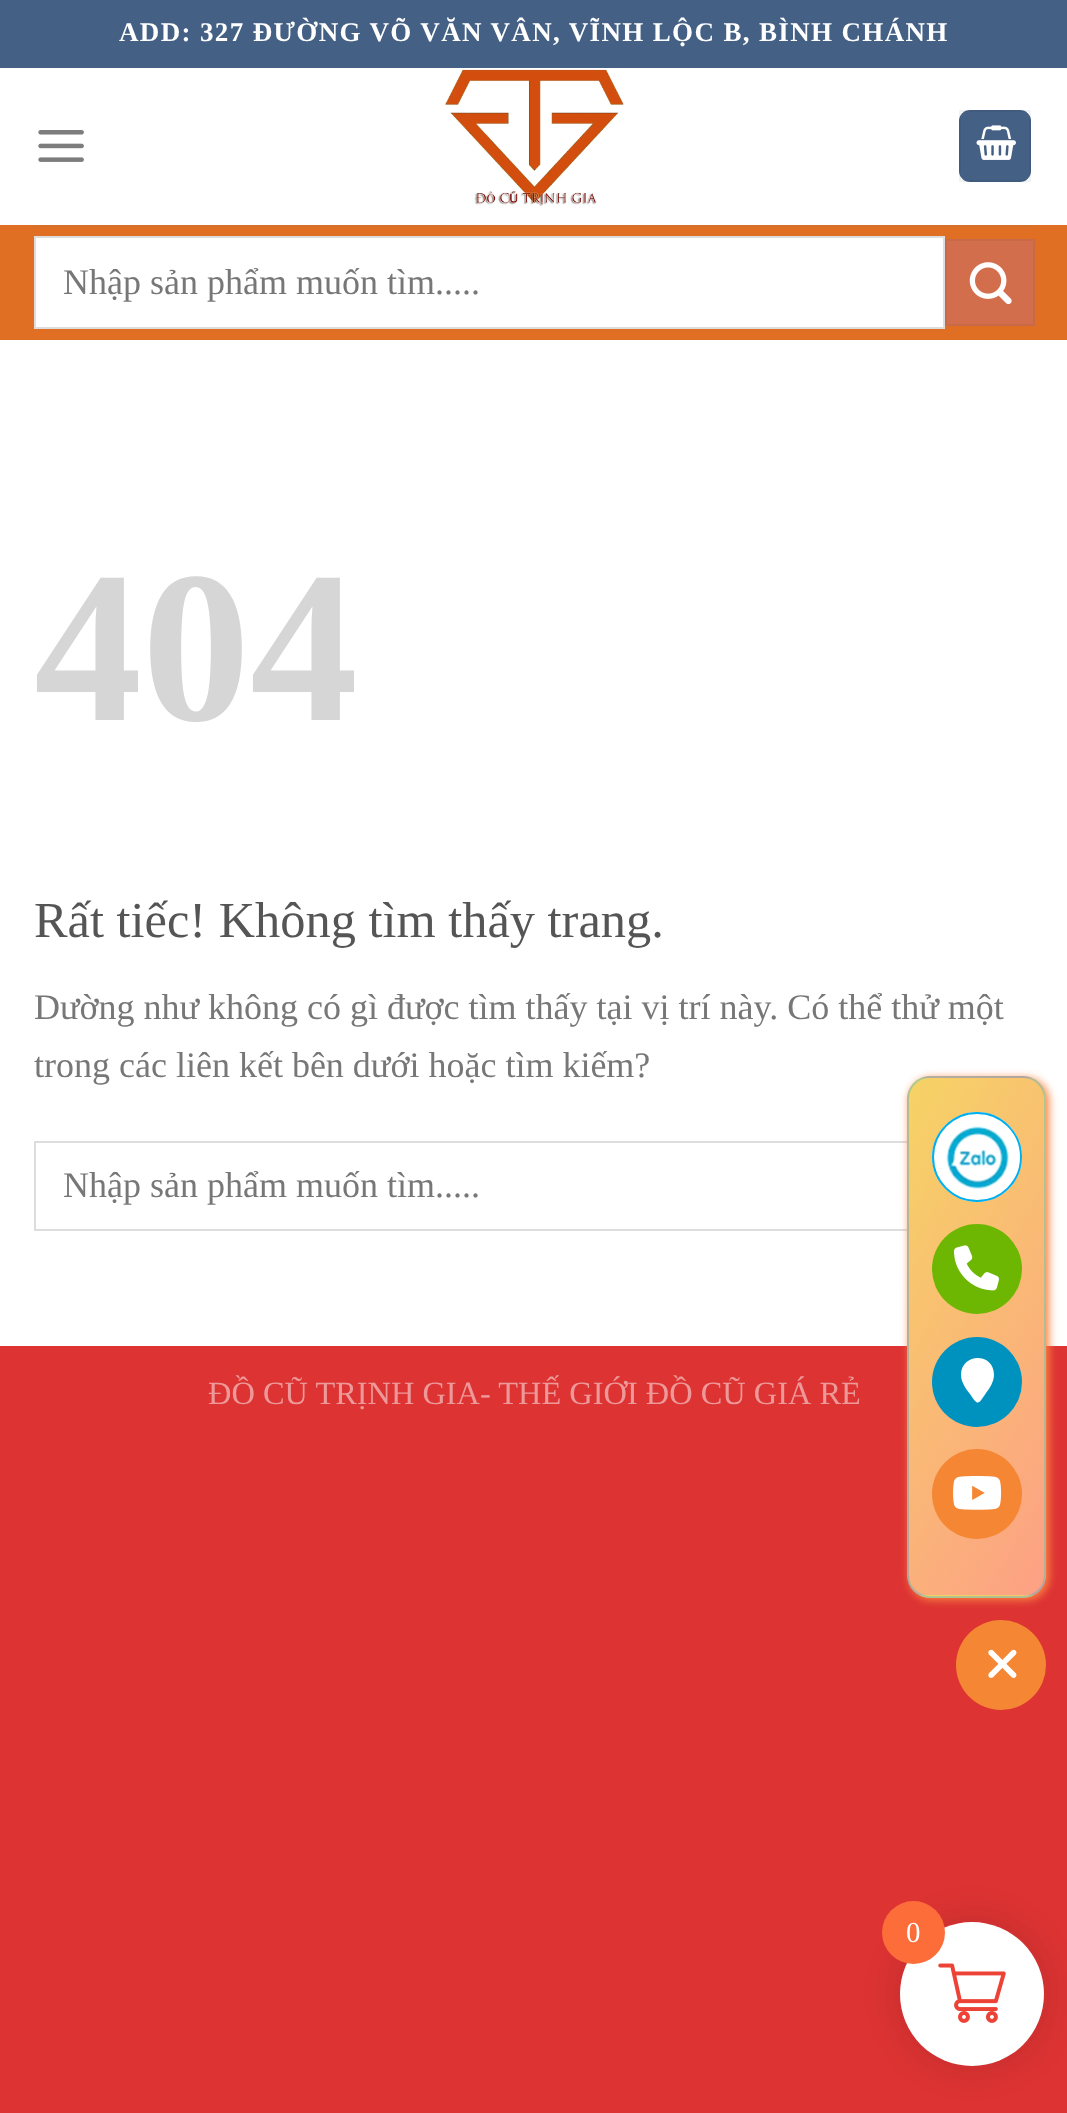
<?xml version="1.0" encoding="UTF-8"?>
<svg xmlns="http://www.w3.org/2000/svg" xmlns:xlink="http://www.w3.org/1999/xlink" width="1067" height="2113">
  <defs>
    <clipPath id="clip1"><rect x="907" y="1076" width="139" height="522" rx="23" /></clipPath>
    <linearGradient id="g1" gradientUnits="userSpaceOnUse" x1="814" y1="725" x2="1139" y2="913"><stop offset="0" stop-color="#f6d365" /><stop offset="1" stop-color="#fda085" /></linearGradient>
    <linearGradient id="g2" gradientUnits="userSpaceOnUse" x1="679" y1="1243" x2="1004" y2="1430"><stop offset="0" stop-color="#f6d365" /><stop offset="1" stop-color="#fda085" /></linearGradient>
    <linearGradient id="g3" gradientUnits="userSpaceOnUse" x1="814" y1="1243" x2="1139" y2="1430"><stop offset="0" stop-color="#f6d365" /><stop offset="1" stop-color="#fda085" /></linearGradient>
    <linearGradient id="g4" gradientUnits="userSpaceOnUse" x1="949" y1="1243" x2="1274" y2="1430"><stop offset="0" stop-color="#f6d365" /><stop offset="1" stop-color="#fda085" /></linearGradient>
    <linearGradient id="g5" gradientUnits="userSpaceOnUse" x1="814" y1="1760" x2="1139" y2="1948"><stop offset="0" stop-color="#f6d365" /><stop offset="1" stop-color="#fda085" /></linearGradient>
  </defs>
  <rect width="100%" height="100%" fill="#dd3333" />
  <rect y="68" width="1067" height="1278" fill="#ffffff" />
  <rect width="1067" height="68" fill="#446084" />
  <image x="38" y="130" width="46" height="32" xlink:href="image1.png" />
  <image x="445" y="69" width="179" height="138" xlink:href="image2.png" />
  <rect x="959" y="110" width="72" height="72" rx="11" fill="#446084" />
  <rect x="960" y="111" width="70" height="70" fill="none" stroke="#000000" stroke-opacity="0.05" stroke-width="2" />
  <image x="976" y="125" width="40" height="35" xlink:href="image3.png" />
  <rect y="225" width="1067" height="115" fill="#e06f23" />
  <rect x="34" y="225" width="1001" height="2" fill="#d5702b" />
  <rect x="35" y="237" width="909" height="91" fill="#ffffff" stroke="#dddddd" stroke-width="2" />
  <rect x="946" y="240" width="88" height="85" fill="#d26e4b" stroke="#c86947" stroke-width="2" />
  <image x="969" y="262" width="43" height="43" xlink:href="image4.png" />
  <rect x="35" y="1142" width="909" height="88" fill="none" stroke="#dddddd" stroke-width="2" />
  <rect x="909" y="1078" width="140" height="522" rx="23" fill="#fb8543" filter="blur(4.5px)" />
  <g clip-path="url(#clip1)">
    <rect x="920" y="1076" width="113" height="2" fill="url(#g1)" />
    <rect x="907" y="1089" width="2" height="496" fill="url(#g2)" />
    <rect x="909" y="1078" width="135" height="517" fill="url(#g3)" />
    <rect x="1044" y="1089" width="2" height="496" fill="url(#g4)" />
    <rect x="918" y="1595" width="117" height="3" fill="url(#g5)" />
  </g>
  <rect x="908" y="1077" width="137" height="520" rx="22" fill="none" stroke="#00afee" stroke-opacity="0.29" stroke-width="2" />
  <circle cx="977" cy="1157" r="45" fill="#ffffff" />
  <image x="946" y="1126" width="63" height="63" xlink:href="image5.png" />
  <circle cx="977" cy="1157" r="44" fill="none" stroke="#00afee" stroke-width="2" />
  <circle cx="977" cy="1269" r="45" fill="#6db703" />
  <image x="954" y="1245" width="45" height="46" xlink:href="image6.png" />
  <circle cx="977" cy="1382" r="45" fill="#0092bf" />
  <path d="M 994 1375 c 0 6 -4 13 -8 18 c -8 12 -8 13 -16 1 c -4 -5 -9 -12 -9 -19 c 0 -22 33 -23 33 0 z" fill="#ffffff" />
  <circle cx="977" cy="1494" r="45" fill="#f58634" />
  <image x="953" y="1476" width="49" height="34" xlink:href="image7.png" />
  <circle cx="1001" cy="1665" r="45" fill="#f58634" />
  <image x="988" y="1649" width="29" height="29" xlink:href="image8.png" />
  <rect x="896" y="1917" width="153" height="153" rx="76.5" fill="#000000" fill-opacity="0.1" filter="blur(17px)" />
  <circle cx="972" cy="1994" r="72" fill="#ffffff" />
  <image x="938" y="1963" width="68" height="60" xlink:href="image9.png" />
  <circle cx="913.5" cy="1932.5" r="31.5" fill="#fc6d3a" />
  <text x="119" y="41" style="font-family: Liberation Serif; font-size: 27px; font-weight: bold; letter-spacing: 1.35px; fill: #ffffff">ADD: 327 ĐƯỜNG VÕ VĂN VÂN, VĨNH LỘC B, BÌNH CHÁNH</text>
  <text x="63" y="294" style="font-family: Liberation Serif; font-size: 36px; fill: #777777">Nhập sản phẩm muốn tìm.....</text>
  <text x="34" y="720" style="font-family: Liberation Serif; font-size: 216px; font-weight: bold; fill: #d6d6d6">404</text>
  <text x="34" y="937" style="font-family: Liberation Serif; font-size: 50.4px; fill: #555555">Rất tiếc! Không tìm thấy trang.</text>
  <text x="34" y="1019" style="font-family: Liberation Serif; font-size: 36px; fill: #777777">Dường như không có gì được tìm thấy tại vị trí này. Có thể thử một</text>
  <text x="34" y="1077" style="font-family: Liberation Serif; font-size: 36px; fill: #777777">trong các liên kết bên dưới hoặc tìm kiếm?</text>
  <text x="63" y="1197" style="font-family: Liberation Serif; font-size: 36px; fill: #777777">Nhập sản phẩm muốn tìm.....</text>
  <text x="208" y="1404" style="font-family: Liberation Serif; font-size: 32.4px; fill: #ee9999">ĐỒ CŨ TRỊNH GIA- THẾ GIỚI ĐỒ CŨ GIÁ RẺ</text>
  <text x="906" y="1942" style="font-family: Liberation Serif; font-size: 29px; fill: #ffffff">0</text>
</svg>
